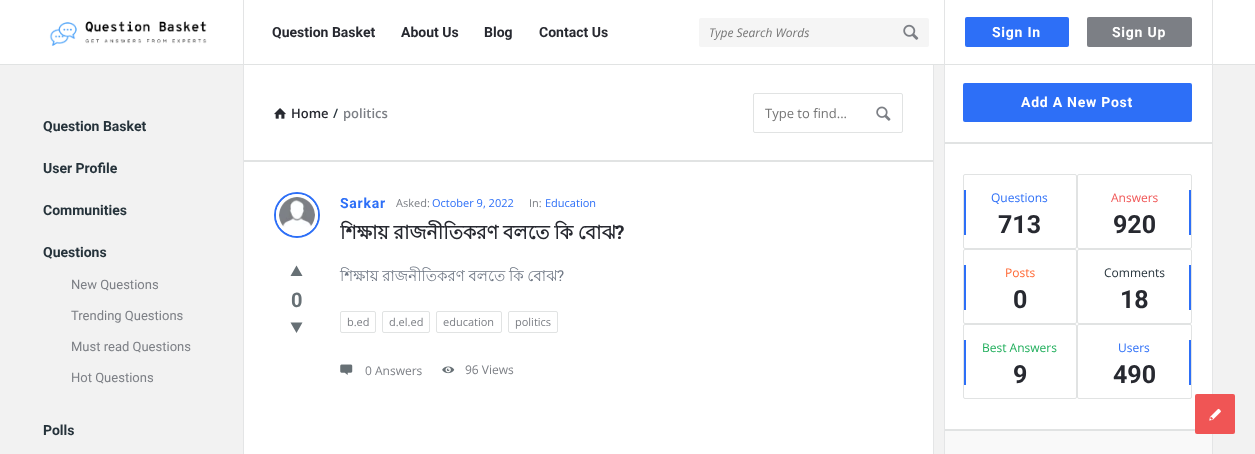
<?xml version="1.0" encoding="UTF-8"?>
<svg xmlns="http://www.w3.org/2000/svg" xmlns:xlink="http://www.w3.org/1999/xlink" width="1255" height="454">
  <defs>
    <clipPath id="clip1"><rect x="340" y="219" width="285" height="27" /></clipPath>
  </defs>
  <rect width="100%" height="100%" fill="#f2f2f2" />
  <rect width="1255" height="64" fill="#ffffff" />
  <rect y="64" width="1255" height="1" fill="#e1e3e3" />
  <rect x="243" width="1" height="65" fill="#e3e4e5" />
  <image x="49" y="21" width="158" height="25" xlink:href="image1.png" />
  <rect x="699" y="18" width="230" height="29" rx="2" fill="#f5f5f5" />
  <image x="903" y="24" width="16" height="16" xlink:href="image2.png" />
  <rect x="1212" width="1" height="65" fill="#e3e4e5" />
  <rect x="944" width="1" height="65" fill="#e3e4e5" />
  <rect x="965" y="17" width="104" height="30" rx="2" fill="#2d6ff7" />
  <rect x="1087" y="17" width="105" height="30" rx="2" fill="#7c7f85" />
  <rect x="244" y="65" width="689" height="389" fill="#ffffff" />
  <rect x="933" y="65" width="1" height="389" fill="#e4e5e6" />
  <rect x="243" y="65" width="1" height="389" fill="#e4e5e6" />
  <rect x="244" y="160" width="689" height="2" fill="#e1e3e3" />
  <image x="274" y="108" width="12" height="11" xlink:href="image3.png" />
  <rect x="753.5" y="93.5" width="149" height="39" rx="1.5" fill="none" stroke="#e1e3e3" />
  <image x="876" y="106" width="15" height="15" xlink:href="image4.png" />
  <circle cx="297" cy="215" r="22" fill="none" stroke="#2d6ff7" stroke-width="2" />
  <circle cx="297" cy="215" r="19.5" fill="none" stroke="#ffffff" stroke-width="3" />
  <image x="279" y="197" width="36" height="30" xlink:href="image5.png" />
  <path d="M 290.5 276 l 6 -10.5 l 6 10.5 z" fill="#677075" />
  <path d="M 302.5 322.5 l -6 10.5 l -6 -10.5 z" fill="#677075" />
  <rect x="340.5" y="311.5" width="35" height="21" rx="1.5" fill="none" stroke="#e1e3e3" />
  <rect x="382.5" y="311.5" width="47" height="21" rx="1.5" fill="none" stroke="#e1e3e3" />
  <rect x="436.5" y="311.5" width="65" height="21" rx="1.5" fill="none" stroke="#e1e3e3" />
  <rect x="508.5" y="311.5" width="49" height="21" rx="1.5" fill="none" stroke="#e1e3e3" />
  <image x="340" y="364" width="13" height="11" xlink:href="image6.png" />
  <image x="442" y="366" width="13" height="8" xlink:href="image7.png" />
  <rect x="945" y="65" width="267" height="364" fill="#ffffff" />
  <rect x="1212" y="65" width="1" height="389" fill="#e4e5e6" />
  <rect x="944" y="65" width="1" height="389" fill="#e4e5e6" />
  <rect x="945" y="142" width="267" height="2" fill="#e1e3e3" />
  <rect x="963" y="83" width="229" height="39" rx="2" fill="#2d6ff7" />
  <rect x="945" y="429" width="250" height="2" fill="#e1e3e3" />
  <rect x="963.5" y="174.5" width="113" height="74" rx="1.5" fill="none" stroke="#e1e3e3" />
  <rect x="964" y="190" width="2" height="45" fill="#2d6ff7" />
  <rect x="1077.5" y="174.5" width="114" height="74" rx="1.5" fill="none" stroke="#e1e3e3" />
  <rect x="1189" y="190" width="2" height="45" fill="#2d6ff7" />
  <rect x="963.5" y="249.5" width="113" height="74" rx="1.5" fill="none" stroke="#e1e3e3" />
  <rect x="964" y="265" width="2" height="45" fill="#2d6ff7" />
  <rect x="1077.5" y="249.5" width="114" height="74" rx="1.5" fill="none" stroke="#e1e3e3" />
  <rect x="1189" y="265" width="2" height="45" fill="#2d6ff7" />
  <rect x="963.5" y="324.5" width="113" height="74" rx="1.5" fill="none" stroke="#e1e3e3" />
  <rect x="964" y="340" width="2" height="45" fill="#2d6ff7" />
  <rect x="1077.5" y="324.5" width="114" height="74" rx="1.5" fill="none" stroke="#e1e3e3" />
  <rect x="1189" y="340" width="2" height="45" fill="#2d6ff7" />
  <rect x="945" y="431" width="267" height="23" fill="#f9f9f9" />
  <rect x="1195" y="394" width="40" height="40" rx="2" fill="#f05555" />
  <image x="1209" y="408" width="12" height="13" xlink:href="image8.png" />
  <text x="272" y="37" style="font-family: Roboto; font-size: 14px; font-weight: bold; fill: #272930">Question Basket</text>
  <text x="401" y="37" style="font-family: Roboto; font-size: 14px; font-weight: bold; fill: #272930">About Us</text>
  <text x="484" y="37" style="font-family: Roboto; font-size: 14px; font-weight: bold; fill: #272930">Blog</text>
  <text x="539" y="37" style="font-family: Roboto; font-size: 14px; font-weight: bold; fill: #272930">Contact Us</text>
  <text x="709" y="37" style="font-family: Open Sans; font-size: 12px; font-style: italic; fill: #757575">Type Search Words</text>
  <text x="992" y="37" style="font-family: Roboto; font-size: 14px; font-weight: bold; letter-spacing: 0.75px; fill: #ffffff">Sign In</text>
  <text x="1112" y="37" style="font-family: Roboto; font-size: 14px; font-weight: bold; letter-spacing: 0.75px; fill: #ffffff">Sign Up</text>
  <text x="43" y="131" style="font-family: Roboto; font-size: 14px; font-weight: bold; fill: #26333b">Question Basket</text>
  <text x="43" y="173" style="font-family: Roboto; font-size: 14px; font-weight: bold; fill: #26333b">User Profile</text>
  <text x="43" y="215" style="font-family: Roboto; font-size: 14px; font-weight: bold; fill: #26333b">Communities</text>
  <text x="43" y="257" style="font-family: Roboto; font-size: 14px; font-weight: bold; fill: #26333b">Questions</text>
  <text x="71" y="289" style="font-family: Roboto; font-size: 13px; fill: #7c7f85">New Questions</text>
  <text x="71" y="320" style="font-family: Roboto; font-size: 13px; fill: #7c7f85">Trending Questions</text>
  <text x="71" y="351" style="font-family: Roboto; font-size: 13px; fill: #7c7f85">Must read Questions</text>
  <text x="71" y="382" style="font-family: Roboto; font-size: 13px; fill: #7c7f85">Hot Questions</text>
  <text x="43" y="435" style="font-family: Roboto; font-size: 14px; font-weight: bold; fill: #26333b">Polls</text>
  <text x="291" y="118" style="font-family: Open Sans; font-size: 13px; font-weight: 600; fill: #272930">Home</text>
  <text x="333" y="118" style="font-family: Open Sans; font-size: 13px; font-weight: 600; fill: #26333b">/</text>
  <text x="343" y="118" style="font-family: Open Sans; font-size: 13px; font-weight: 600; fill: #7c7f85">politics</text>
  <text x="765" y="118" style="font-family: Open Sans; font-size: 13px; fill: #757575">Type to find...</text>
  <text x="340" y="208" style="font-family: Roboto; font-size: 14px; font-weight: bold; letter-spacing: 0.75px; fill: #2d6ff7">Sarkar</text>
  <text x="396" y="207" style="font-family: Open Sans; font-size: 11px; fill: #7c7f85">Asked:</text>
  <text x="432" y="207" style="font-family: Open Sans; font-size: 11px; fill: #2d6ff7">October 9, 2022</text>
  <text x="529" y="207" style="font-family: Open Sans; font-size: 11px; fill: #7c7f85">In:</text>
  <text x="545" y="207" style="font-family: Open Sans; font-size: 11px; fill: #2d6ff7">Education</text>
  <g clip-path="url(#clip1)">
    <text x="340" y="239" word-spacing="-0.5" style="font-family: Lohit Bengali; font-size: 19px; font-weight: bold; fill: #272930">শিক্ষায় রাজনীতিকরণ বলতে কি বোঝ</text>
  </g>
  <text x="615" y="239" style="font-family: Roboto; font-size: 19px; font-weight: bold; fill: #272930">?</text>
  <text x="291" y="307" style="font-family: Roboto; font-size: 20px; font-weight: bold; fill: #677075">0</text>
  <text x="340" y="281" word-spacing="-0.5" style="font-family: Lohit Bengali; font-size: 15px; fill: #707885">শিক্ষায় রাজনীতিকরণ বলতে কি বোঝ</text>
  <text x="557" y="281" style="font-family: Roboto; font-size: 15px; fill: #707885">?</text>
  <text x="347" y="326" style="font-family: Open Sans; font-size: 11px; fill: #7c7f85">b.ed</text>
  <text x="389" y="326" style="font-family: Open Sans; font-size: 11px; fill: #7c7f85">d.el.ed</text>
  <text x="443" y="326" style="font-family: Open Sans; font-size: 11px; fill: #7c7f85">education</text>
  <text x="515" y="326" style="font-family: Open Sans; font-size: 11px; fill: #7c7f85">politics</text>
  <text x="365" y="375" style="font-family: Open Sans; font-size: 12px; fill: #7c7f85">0 Answers</text>
  <text x="465" y="374" style="font-family: Open Sans; font-size: 12px; fill: #7c7f85">96 Views</text>
  <text x="1021" y="107" style="font-family: Roboto; font-size: 14px; font-weight: bold; letter-spacing: 0.75px; fill: #ffffff">Add A New Post</text>
  <text x="991" y="202" style="font-family: Open Sans; font-size: 12px; fill: #2d6ff7">Questions</text>
  <text x="998" y="233" style="font-family: Roboto; font-size: 25px; font-weight: bold; fill: #272930">713</text>
  <text x="1111" y="202" style="font-family: Open Sans; font-size: 12px; fill: #f05555">Answers</text>
  <text x="1113" y="233" style="font-family: Roboto; font-size: 25px; font-weight: bold; fill: #272930">920</text>
  <text x="1005" y="277" style="font-family: Open Sans; font-size: 12px; fill: #ff6935">Posts</text>
  <text x="1013" y="308" style="font-family: Roboto; font-size: 25px; font-weight: bold; fill: #272930">0</text>
  <text x="1104" y="277" style="font-family: Open Sans; font-size: 12px; fill: #26333b">Comments</text>
  <text x="1120" y="308" style="font-family: Roboto; font-size: 25px; font-weight: bold; fill: #272930">18</text>
  <text x="982" y="352" style="font-family: Open Sans; font-size: 12px; fill: #1fae5b">Best Answers</text>
  <text x="1013" y="383" style="font-family: Roboto; font-size: 25px; font-weight: bold; fill: #272930">9</text>
  <text x="1118" y="352" style="font-family: Open Sans; font-size: 12px; fill: #2d6ff7">Users</text>
  <text x="1113" y="383" style="font-family: Roboto; font-size: 25px; font-weight: bold; fill: #272930">490</text>
</svg>
